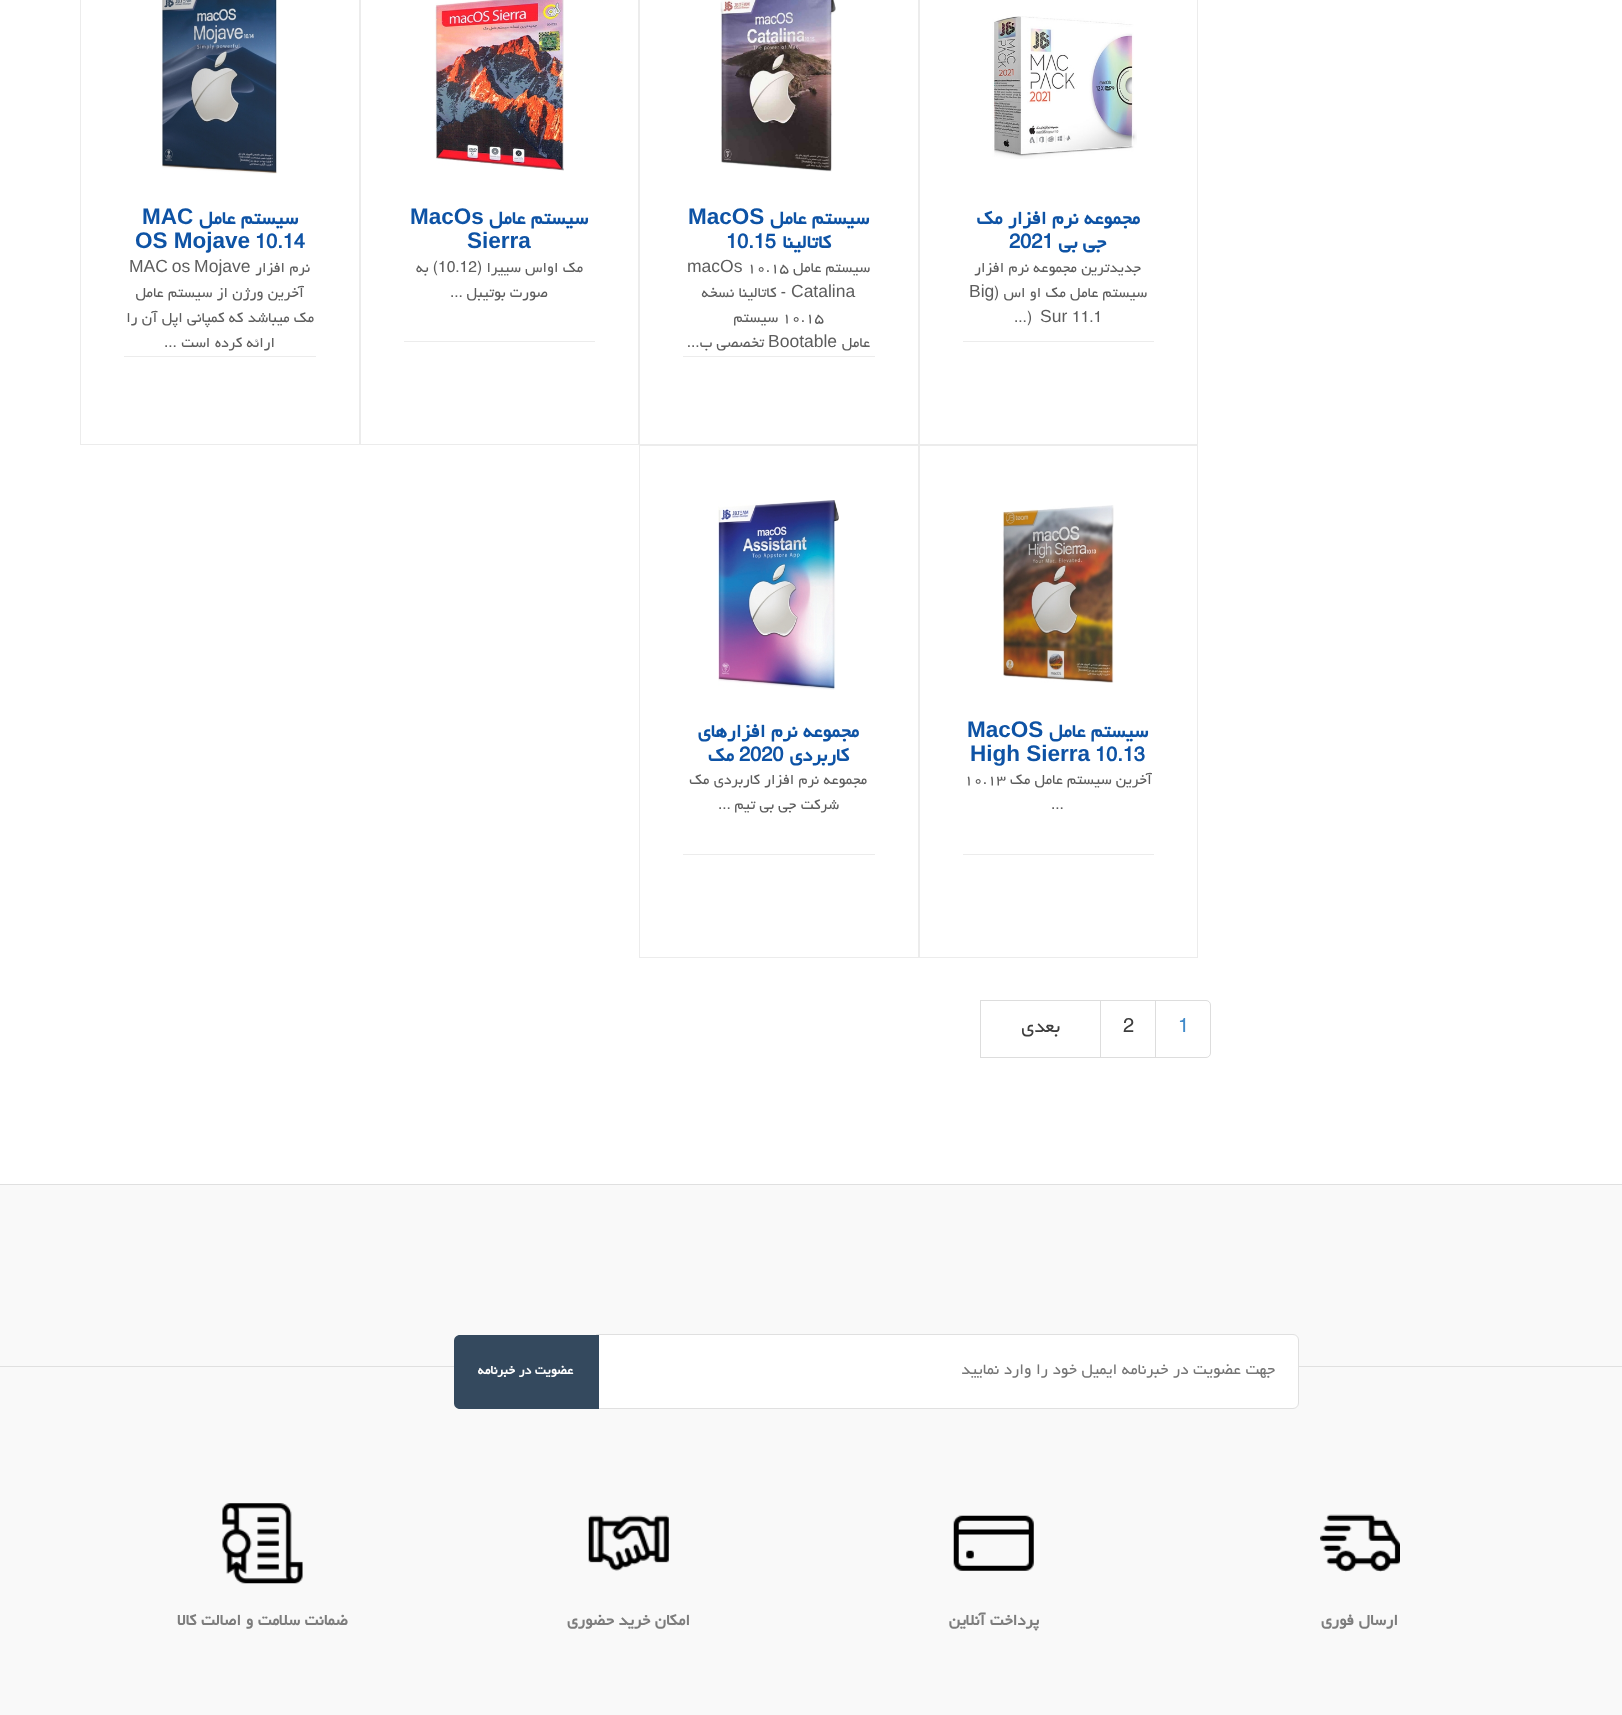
<?xml version="1.0" encoding="UTF-8"?>
<svg xmlns="http://www.w3.org/2000/svg" xmlns:xlink="http://www.w3.org/1999/xlink" width="1622" height="1715">
  <rect width="100%" height="100%" fill="#ffffff" />
  <rect x="919.5" y="-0.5" width="278" height="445" fill="none" stroke="#ececec" />
  <image x="992" y="16" width="145" height="143" xlink:href="image1.png" />
  <rect x="963" y="341" width="191" height="1" fill="#ececec" />
  <rect x="639.5" y="-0.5" width="279" height="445" fill="none" stroke="#ececec" />
  <image x="720" y="0" width="116" height="172" xlink:href="image2.png" />
  <rect x="683" y="356" width="192" height="1" fill="#ececec" />
  <rect x="360.5" y="-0.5" width="278" height="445" fill="none" stroke="#ececec" />
  <image x="435" y="0" width="129" height="171" xlink:href="image3.png" />
  <rect x="404" y="341" width="191" height="1" fill="#ececec" />
  <rect x="80.5" y="-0.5" width="279" height="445" fill="none" stroke="#ececec" />
  <image x="162" y="0" width="115" height="174" xlink:href="image4.png" />
  <rect x="124" y="356" width="192" height="1" fill="#ececec" />
  <rect x="919.5" y="445.5" width="278" height="512" fill="none" stroke="#ececec" />
  <image x="1002" y="505" width="112" height="178" xlink:href="image5.png" />
  <rect x="963" y="854" width="191" height="1" fill="#ececec" />
  <rect x="639.5" y="445.5" width="279" height="512" fill="none" stroke="#ececec" />
  <image x="718" y="500" width="121" height="190" xlink:href="image6.png" />
  <rect x="683" y="854" width="192" height="1" fill="#ececec" />
  <path d="M 1155.5 1000.5 h 50.5 c 2.5 0 4.5 2 4.5 4.5 v 48 c 0 2.5 -2 4.5 -4.5 4.5 h -50.5 z" fill="none" stroke="#dddddd" />
  <rect x="1100.5" y="1000.5" width="55" height="57" fill="none" stroke="#dddddd" />
  <rect x="980.5" y="1000.5" width="120" height="57" fill="none" stroke="#dddddd" />
  <rect y="1185" width="1622" height="530" fill="#f9f9f9" />
  <rect y="1184" width="1622" height="1" fill="#e0e0e0" />
  <rect y="1366" width="1622" height="1" fill="#e0e0e0" />
  <path d="M 596.5 1334.5 h 696.5 c 3 0 5.5 2.5 5.5 5.5 v 63 c 0 3 -2.5 5.5 -5.5 5.5 h -696.5 z" fill="#ffffff" stroke="#e0e0e0" />
  <path d="M 460 1335 h 139 v 74 h -139 c -3.5 0 -6 -2.5 -6 -6 v -62 c 0 -3.5 2.5 -6 6 -6 z" fill="#34495e" />
  <image x="1320" y="1514" width="80" height="58" xlink:href="image7.png" />
  <image x="953" y="1515" width="81" height="56" xlink:href="image8.png" />
  <image x="588" y="1515" width="81" height="56" xlink:href="image9.png" />
  <image x="222" y="1503" width="81" height="81" xlink:href="image10.png" />
  <text x="1140" y="224" style="font-family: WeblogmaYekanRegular; font-size: 22.5px; font-weight: bold; direction: rtl; fill: #0e53a5">مجموعه نرم افزار مک</text>
  <text x="1106" y="248" style="font-family: WeblogmaYekanRegular; font-size: 22.5px; font-weight: bold; direction: rtl; fill: #0e53a5">جی بی</text>
  <text x="1009" y="248" style="font-family: WeblogmaYekanRegular; font-size: 22.5px; font-weight: bold; fill: #0e53a5">2021</text>
  <text x="1141" y="272" style="font-family: WeblogmaYekanRegular; font-size: 17.5px; direction: rtl; fill: #5d5d5d">جدیدترین مجموعه نرم افزار</text>
  <text x="1147" y="297" style="font-family: WeblogmaYekanRegular; font-size: 17.5px; direction: rtl; fill: #5d5d5d">سیستم عامل مک او اس (</text>
  <text x="969" y="297" style="font-family: Liberation Sans; font-size: 17.5px; fill: #5d5d5d">Big</text>
  <text x="1072" y="322" style="font-family: WeblogmaYekanRegular; font-size: 17.5px; fill: #5d5d5d">11.1</text>
  <text x="1040" y="322" style="font-family: Liberation Sans; font-size: 17.5px; fill: #5d5d5d">Sur</text>
  <text x="1027" y="322" style="font-family: WeblogmaYekanRegular; font-size: 17.5px; fill: #5d5d5d">)</text>
  <text x="1014" y="322" style="font-family: WeblogmaYekanRegular; font-size: 17.5px; fill: #5d5d5d">...</text>
  <text x="869" y="224" style="font-family: WeblogmaYekanRegular; font-size: 22.5px; font-weight: bold; direction: rtl; fill: #0e53a5">سیستم عامل</text>
  <text x="688" y="224" style="font-family: Liberation Sans; font-size: 22.5px; font-weight: bold; fill: #0e53a5">MacOS</text>
  <text x="831" y="248" style="font-family: WeblogmaYekanRegular; font-size: 22.5px; font-weight: bold; direction: rtl; fill: #0e53a5">کاتالینا</text>
  <text x="726" y="248" style="font-family: WeblogmaYekanRegular; font-size: 22.5px; font-weight: bold; fill: #0e53a5">10.15</text>
  <text x="870" y="272" style="font-family: WeblogmaYekanRegular; font-size: 17.5px; direction: rtl; fill: #5d5d5d">سیستم عامل</text>
  <text x="747" y="272" style="font-family: WeblogmaYekanRegular; font-size: 17.5px; fill: #5d5d5d">۱۰.۱۵</text>
  <text x="687" y="272" style="font-family: Liberation Sans; font-size: 17.5px; fill: #5d5d5d">macOs</text>
  <text x="791" y="297" style="font-family: Liberation Sans; font-size: 17.5px; fill: #5d5d5d">Catalina</text>
  <text x="786" y="297" style="font-family: WeblogmaYekanRegular; font-size: 17.5px; direction: rtl; fill: #5d5d5d">- کاتالینا نسخه</text>
  <text x="782" y="322" style="font-family: WeblogmaYekanRegular; font-size: 17.5px; fill: #5d5d5d">۱۰.۱۵</text>
  <text x="778" y="322" style="font-family: WeblogmaYekanRegular; font-size: 17.5px; direction: rtl; fill: #5d5d5d">سیستم</text>
  <text x="870" y="347" style="font-family: WeblogmaYekanRegular; font-size: 17.5px; direction: rtl; fill: #5d5d5d">عامل</text>
  <text x="768" y="347" style="font-family: Liberation Sans; font-size: 17.5px; fill: #5d5d5d">Bootable</text>
  <text x="764" y="347" style="font-family: WeblogmaYekanRegular; font-size: 17.5px; direction: rtl; fill: #5d5d5d">تخصصی ب...</text>
  <text x="588" y="224" style="font-family: WeblogmaYekanRegular; font-size: 22.5px; font-weight: bold; direction: rtl; fill: #0e53a5">سیستم عامل</text>
  <text x="410" y="224" style="font-family: Liberation Sans; font-size: 22.5px; font-weight: bold; fill: #0e53a5">MacOs</text>
  <text x="467" y="248" style="font-family: Liberation Sans; font-size: 22.5px; font-weight: bold; fill: #0e53a5">Sierra</text>
  <text x="583" y="272" style="font-family: WeblogmaYekanRegular; font-size: 17.5px; direction: rtl; fill: #5d5d5d">مک اواس سییرا (</text>
  <text x="438" y="272" style="font-family: WeblogmaYekanRegular; font-size: 17.5px; fill: #5d5d5d">10.12</text>
  <text x="438" y="272" style="font-family: WeblogmaYekanRegular; font-size: 17.5px; direction: rtl; fill: #5d5d5d">) به</text>
  <text x="548" y="297" style="font-family: WeblogmaYekanRegular; font-size: 17.5px; direction: rtl; fill: #5d5d5d">صورت بوتیبل</text>
  <text x="450" y="297" style="font-family: WeblogmaYekanRegular; font-size: 17.5px; fill: #5d5d5d">...</text>
  <text x="298" y="224" style="font-family: WeblogmaYekanRegular; font-size: 22.5px; font-weight: bold; direction: rtl; fill: #0e53a5">سیستم عامل</text>
  <text x="142" y="224" style="font-family: Liberation Sans; font-size: 22.5px; font-weight: bold; fill: #0e53a5">MAC</text>
  <text x="255" y="248" style="font-family: WeblogmaYekanRegular; font-size: 22.5px; font-weight: bold; fill: #0e53a5">10.14</text>
  <text x="135" y="248" style="font-family: Liberation Sans; font-size: 22.5px; font-weight: bold; fill: #0e53a5">OS Mojave</text>
  <text x="310" y="272" style="font-family: WeblogmaYekanRegular; font-size: 17.5px; direction: rtl; fill: #5d5d5d">نرم افزار</text>
  <text x="129" y="272" word-spacing="-1" style="font-family: Liberation Sans; font-size: 17.5px; fill: #5d5d5d">MAC os Mojave</text>
  <text x="304" y="297" style="font-family: WeblogmaYekanRegular; font-size: 17.5px; direction: rtl; fill: #5d5d5d">آخرین ورژن از سیستم عامل</text>
  <text x="314" y="322" style="font-family: WeblogmaYekanRegular; font-size: 17.5px; direction: rtl; fill: #5d5d5d">مک میباشد که کمپانی اپل آن را</text>
  <text x="275" y="347" style="font-family: WeblogmaYekanRegular; font-size: 17.5px; direction: rtl; fill: #5d5d5d">ارائه کرده است</text>
  <text x="164" y="347" style="font-family: WeblogmaYekanRegular; font-size: 17.5px; fill: #5d5d5d">...</text>
  <text x="1148" y="737" style="font-family: WeblogmaYekanRegular; font-size: 22.5px; font-weight: bold; direction: rtl; fill: #0e53a5">سیستم عامل</text>
  <text x="967" y="737" style="font-family: Liberation Sans; font-size: 22.5px; font-weight: bold; fill: #0e53a5">MacOS</text>
  <text x="1095" y="761" style="font-family: WeblogmaYekanRegular; font-size: 22.5px; font-weight: bold; fill: #0e53a5">10.13</text>
  <text x="970" y="761" style="font-family: Liberation Sans; font-size: 22.5px; font-weight: bold; fill: #0e53a5">High Sierra</text>
  <text x="1152" y="784" style="font-family: WeblogmaYekanRegular; font-size: 17.5px; direction: rtl; fill: #5d5d5d">آخرین سیستم عامل مک</text>
  <text x="964" y="784" style="font-family: WeblogmaYekanRegular; font-size: 17.5px; fill: #5d5d5d">۱۰.۱۳</text>
  <text x="1051" y="809" style="font-family: WeblogmaYekanRegular; font-size: 17.5px; fill: #5d5d5d">...</text>
  <text x="859" y="737" style="font-family: WeblogmaYekanRegular; font-size: 22.5px; font-weight: bold; direction: rtl; fill: #0e53a5">مجموعه نرم افزارهای</text>
  <text x="849" y="761" style="font-family: WeblogmaYekanRegular; font-size: 22.5px; font-weight: bold; direction: rtl; fill: #0e53a5">کاربردی</text>
  <text x="739" y="761" style="font-family: WeblogmaYekanRegular; font-size: 22.5px; font-weight: bold; fill: #0e53a5">2020</text>
  <text x="734" y="761" style="font-family: WeblogmaYekanRegular; font-size: 22.5px; font-weight: bold; direction: rtl; fill: #0e53a5">مک</text>
  <text x="867" y="784" style="font-family: WeblogmaYekanRegular; font-size: 17.5px; direction: rtl; fill: #5d5d5d">مجموعه نرم افزار کاربردی مک</text>
  <text x="839" y="809" style="font-family: WeblogmaYekanRegular; font-size: 17.5px; direction: rtl; fill: #5d5d5d">شرکت جی بی تیم</text>
  <text x="718" y="809" style="font-family: WeblogmaYekanRegular; font-size: 17.5px; fill: #5d5d5d">...</text>
  <text x="1178" y="1032" style="font-family: WeblogmaYekanRegular; font-size: 22.5px; fill: #428bca">1</text>
  <text x="1123" y="1032" style="font-family: WeblogmaYekanRegular; font-size: 22.5px; fill: #3d3d3d">2</text>
  <text x="1060" y="1032" style="font-family: WeblogmaYekanRegular; font-size: 22.5px; direction: rtl; fill: #3d3d3d">بعدی</text>
  <text x="1275" y="1374" style="font-family: WeblogmaYekanRegular; font-size: 18.75px; direction: rtl; fill: #757575">جهت عضویت در خبرنامه ایمیل خود را وارد نمایید</text>
  <text x="573" y="1374" style="font-family: WeblogmaYekanRegular; font-size: 15px; font-weight: bold; direction: rtl; fill: #ffffff">عضویت در خبرنامه</text>
  <text x="1398" y="1625" style="font-family: WeblogmaYekanRegular; font-size: 18.75px; font-weight: bold; direction: rtl; fill: #7d7d7d">ارسال فوري</text>
  <text x="1039" y="1625" style="font-family: WeblogmaYekanRegular; font-size: 18.75px; font-weight: bold; direction: rtl; fill: #7d7d7d">پرداخت آنلاين</text>
  <text x="690" y="1625" style="font-family: WeblogmaYekanRegular; font-size: 18.75px; font-weight: bold; direction: rtl; fill: #7d7d7d">امکان خريد حضوري</text>
  <text x="348" y="1625" style="font-family: WeblogmaYekanRegular; font-size: 18.75px; font-weight: bold; direction: rtl; fill: #7d7d7d">ضمانت سلامت و اصالت کالا</text>
</svg>
